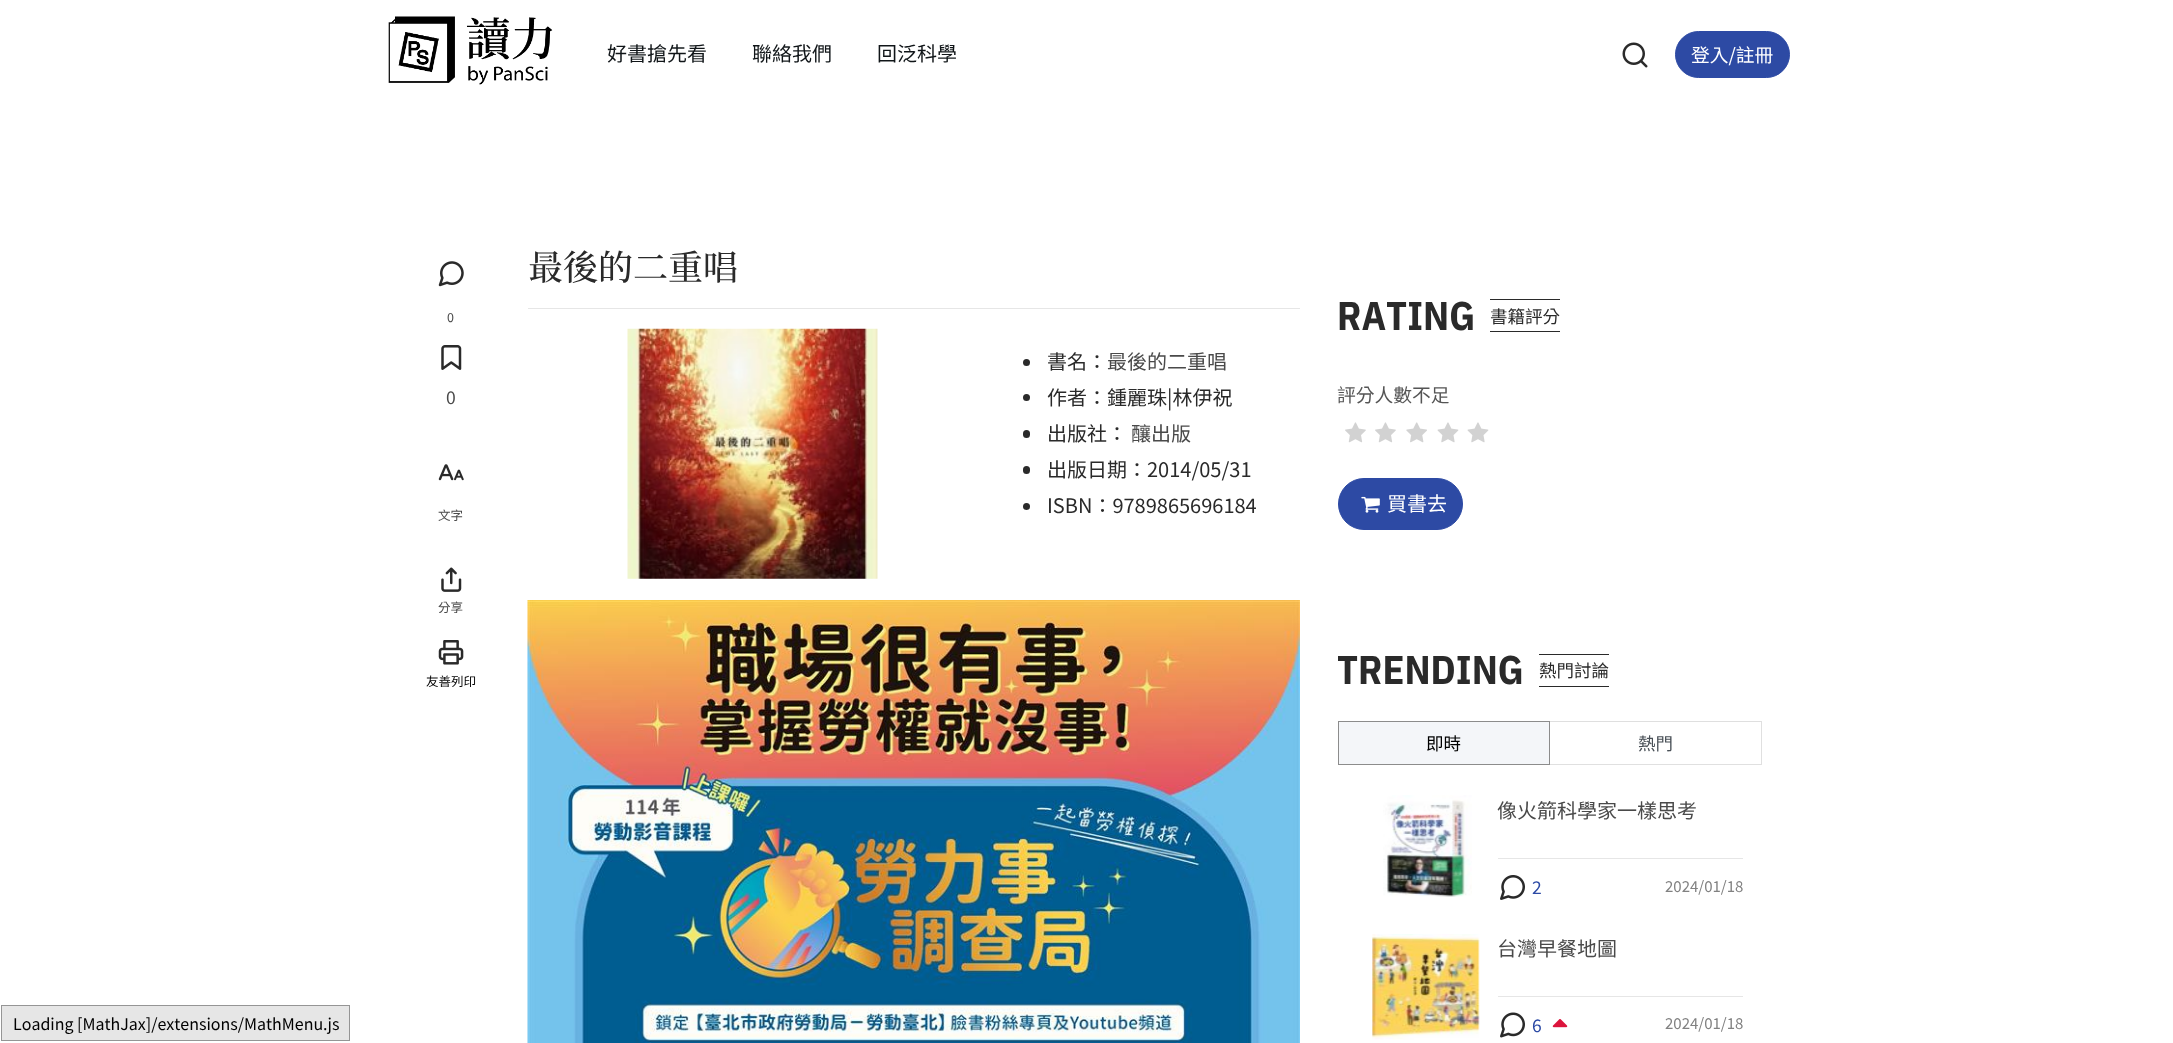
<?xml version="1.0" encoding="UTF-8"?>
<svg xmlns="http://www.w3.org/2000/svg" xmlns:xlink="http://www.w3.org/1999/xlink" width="2173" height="1043">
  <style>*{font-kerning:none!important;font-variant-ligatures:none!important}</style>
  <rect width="100%" height="100%" fill="#ffffff" />
  <image x="388" y="16" width="165" height="69" xlink:href="image1.png" />
  <image x="1622" y="42" width="26" height="26" xlink:href="image2.png" />
  <rect x="1675.5" y="31.5" width="114" height="46" rx="23" fill="#2d4aa4" stroke="#2d4aa4" />
  <rect x="1.5" y="1005.5" width="348" height="35" fill="#e6e6e6" stroke="#959595" />
  <image x="438" y="261" width="26" height="26" xlink:href="image3.png" />
  <image x="441" y="345" width="21" height="25" xlink:href="image4.png" />
  <image x="438" y="464" width="26" height="17" xlink:href="image5.png" />
  <image x="441" y="567" width="21" height="25" xlink:href="image6.png" />
  <image x="438" y="640" width="26" height="25" xlink:href="image7.png" />
  <rect x="528" y="308" width="772" height="1" fill="#e6e6e6" />
  <image x="627" y="328" width="251" height="251" xlink:href="image8.png" />
  <circle cx="1026.5" cy="362.5" r="3.5" fill="#2a2a2a" />
  <circle cx="1026.5" cy="397.5" r="3.5" fill="#2a2a2a" />
  <rect x="1023" y="430" width="7" height="8" rx="3.5" fill="#2a2a2a" />
  <rect x="1023" y="466" width="7" height="8" rx="3.5" fill="#2a2a2a" />
  <circle cx="1026.5" cy="506.5" r="3.5" fill="#2a2a2a" />
  <image x="527" y="600" width="773" height="443" xlink:href="image9.png" />
  <rect x="1490" y="299" width="70" height="1" fill="#2a2a2a" />
  <rect x="1490" y="331" width="70" height="1" fill="#2a2a2a" />
  <image x="1345" y="422" width="21" height="21" xlink:href="image10.png" />
  <image x="1375" y="422" width="21" height="21" xlink:href="image10.png" />
  <image x="1406" y="422" width="21" height="21" xlink:href="image11.png" />
  <image x="1437" y="422" width="22" height="21" xlink:href="image12.png" />
  <image x="1467" y="422" width="22" height="21" xlink:href="image12.png" />
  <rect x="1338.5" y="478.5" width="124" height="51" rx="25.5" fill="#2d4aa4" stroke="#2d4aa4" />
  <image x="1361" y="496" width="19" height="17" xlink:href="image13.png" />
  <rect x="1539" y="654" width="70" height="1" fill="#2a2a2a" />
  <rect x="1539" y="686" width="70" height="1" fill="#2a2a2a" />
  <rect x="1338.5" y="721.5" width="211" height="43" fill="#f4f6f9" stroke="#8c8c8c" />
  <path d="M 1550 721 h 212 l -1 1 h -211 z" fill="#dfdfdf" />
  <path d="M 1762 721 v 44 l -1 -1 v -42 z" fill="#000000" fill-opacity="0.12" />
  <path d="M 1762 765 h -212 v -1 h 211 z" fill="#000000" fill-opacity="0.12" />
  <image x="1383" y="795" width="89" height="102" xlink:href="image14.png" />
  <rect x="1498" y="858" width="245" height="1" fill="#e6e6e6" />
  <image x="1500" y="875" width="25" height="25" xlink:href="image15.png" />
  <image x="1372" y="934" width="108" height="106" xlink:href="image16.png" />
  <rect x="1498" y="996" width="245" height="1" fill="#e6e6e6" />
  <image x="1500" y="1012" width="25" height="26" xlink:href="image17.png" />
  <image x="1552" y="1019" width="16" height="9" xlink:href="image18.png" />
  <text x="607" y="61" style="font-family: Noto Sans TC; font-size: 20px; font-weight: 100; fill: #101518">好書搶先看</text>
  <text x="752" y="61" style="font-family: Noto Sans TC; font-size: 20px; font-weight: 100; fill: #101518">聯絡我們</text>
  <text x="877" y="61" style="font-family: Noto Sans TC; font-size: 20px; font-weight: 100; fill: #101518">回泛科學</text>
  <text x="1691" y="62" style="font-family: Noto Sans TC; font-size: 18.75px; font-weight: 100; fill: #ffffff">登入/註冊</text>
  <text x="13" y="1030" style="font-family: Noto Sans TC; font-size: 16px; font-weight: 100; fill: #000000">Loading [MathJax]/extensions/MathMenu.js</text>
  <text x="447" y="322" style="font-family: Noto Sans TC; font-size: 12.5px; font-weight: 100; fill: #4a4a4a">0</text>
  <text x="446" y="404" style="font-family: Noto Sans TC; font-size: 17.5px; font-weight: 100; fill: #4a4a4a">0</text>
  <text x="438" y="520" style="font-family: Noto Sans TC; font-size: 12.5px; font-weight: 100; fill: #4a4a4a">文字</text>
  <text x="438" y="612" style="font-family: Noto Sans TC; font-size: 12.5px; font-weight: 100; fill: #4a4a4a">分享</text>
  <text x="426" y="686" style="font-family: Noto Sans TC; font-size: 12.5px; font-weight: 100; fill: #000000">友善列印</text>
  <text x="528" y="280" style="font-family: Noto Serif TC; font-size: 35px; font-weight: 500; fill: #2a2a2a">最後的二重唱</text>
  <text x="1047" y="369" style="font-family: Noto Sans TC; font-size: 20px; font-weight: 100; fill: #2a2a2a">書名：</text>
  <text x="1107" y="369" style="font-family: Noto Sans TC; font-size: 20px; font-weight: 100; fill: #4a4a4a">最後的二重唱</text>
  <text x="1047" y="405" style="font-family: Noto Sans TC; font-size: 20px; font-weight: 100; fill: #2a2a2a">作者：鍾麗珠|林伊祝</text>
  <text x="1047" y="441" style="font-family: Noto Sans TC; font-size: 20px; font-weight: 100; fill: #2a2a2a">出版社：</text>
  <text x="1131" y="441" style="font-family: Noto Sans TC; font-size: 20px; font-weight: 100; fill: #4a4a4a">釀出版</text>
  <text x="1047" y="477" style="font-family: Noto Sans TC; font-size: 20px; font-weight: 100; fill: #2a2a2a">出版日期：2014/05/31</text>
  <text x="1047" y="513" style="font-family: Noto Sans TC; font-size: 20px; font-weight: 100; fill: #2a2a2a">ISBN：9789865696184</text>
  <text x="1337" y="330" style="font-family: IBM Plex Sans Condensed; font-size: 40px; font-weight: bold; fill: #2a2a2a">RATING</text>
  <text x="1490" y="323" style="font-family: Noto Sans TC; font-size: 17.5px; font-weight: 100; fill: #2a2a2a">書籍評分</text>
  <text x="1337" y="402" style="font-family: Noto Sans TC; font-size: 18.75px; font-weight: 100; fill: #555555">評分人數不足</text>
  <text x="1387" y="511" style="font-family: Noto Sans TC; font-size: 20px; font-weight: 100; fill: #ffffff">買書去</text>
  <text x="1337" y="684" style="font-family: IBM Plex Sans Condensed; font-size: 40px; font-weight: bold; fill: #2a2a2a">TRENDING</text>
  <text x="1539" y="677" style="font-family: Noto Sans TC; font-size: 17.5px; font-weight: 100; fill: #2a2a2a">熱門討論</text>
  <text x="1426" y="750" style="font-family: Noto Sans TC; font-size: 17.5px; font-weight: 100; fill: #000000">即時</text>
  <text x="1638" y="750" style="font-family: Noto Sans TC; font-size: 17.5px; font-weight: 100; fill: #495057">熱門</text>
  <text x="1497" y="818" style="font-family: Noto Sans TC; font-size: 20px; font-weight: 100; fill: #4a4a4a">像火箭科學家一樣思考</text>
  <text x="1532" y="894" style="font-family: Noto Sans TC; font-size: 17.5px; font-weight: 100; fill: #2c4aa5">2</text>
  <text x="1665" y="892" style="font-family: Noto Sans TC; font-size: 15px; font-weight: 100; fill: #818181">2024/01/18</text>
  <text x="1497" y="956" style="font-family: Noto Sans TC; font-size: 20px; font-weight: 100; fill: #4a4a4a">台灣早餐地圖</text>
  <text x="1532" y="1032" style="font-family: Noto Sans TC; font-size: 17.5px; font-weight: 100; fill: #2c4aa5">6</text>
  <text x="1665" y="1029" style="font-family: Noto Sans TC; font-size: 15px; font-weight: 100; fill: #818181">2024/01/18</text>
</svg>
